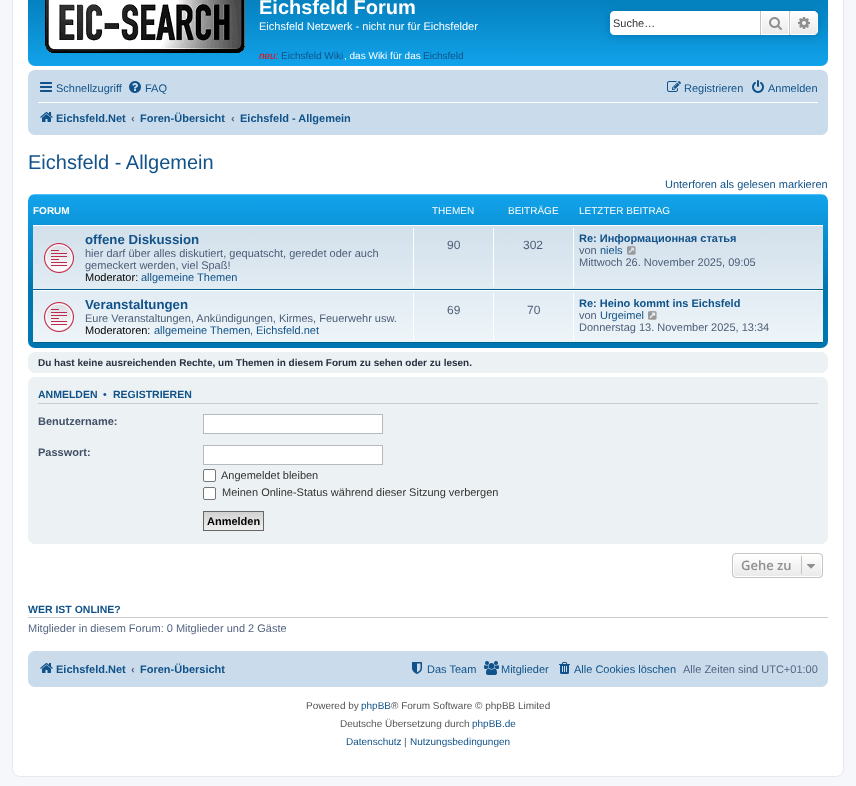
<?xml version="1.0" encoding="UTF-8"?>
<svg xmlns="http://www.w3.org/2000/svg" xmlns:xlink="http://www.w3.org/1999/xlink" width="856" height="786">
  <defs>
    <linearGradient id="g1" gradientUnits="userSpaceOnUse" x1="428" y1="-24" x2="428" y2="68"><stop offset="0" stop-color="#6aceff" /><stop offset="0.02" stop-color="#0076b1" /><stop offset="1" stop-color="#12a3eb" /></linearGradient>
    <linearGradient id="g2" gradientUnits="userSpaceOnUse" x1="775" y1="11" x2="775" y2="35"><stop offset="0" stop-color="#ffffff" /><stop offset="1" stop-color="#e9e9e9" /></linearGradient>
    <linearGradient id="g3" gradientUnits="userSpaceOnUse" x1="804" y1="11" x2="804" y2="35"><stop offset="0" stop-color="#ffffff" /><stop offset="1" stop-color="#e9e9e9" /></linearGradient>
    <linearGradient id="g4" gradientUnits="userSpaceOnUse" x1="428" y1="194" x2="428" y2="348"><stop offset="0" stop-color="#6aceff" /><stop offset="0.01" stop-color="#12a3eb" /><stop offset="0.6" stop-color="#0076b1" /><stop offset="1" stop-color="#0076b1" /></linearGradient>
    <linearGradient id="g5" gradientUnits="userSpaceOnUse" x1="428" y1="225" x2="428" y2="343"><stop offset="0" stop-color="#d2e0eb" /><stop offset="1" stop-color="#eef5f9" /></linearGradient>
    <linearGradient id="g6" gradientUnits="userSpaceOnUse" x1="234" y1="512" x2="234" y2="530"><stop offset="0" stop-color="#d2d2d2" /><stop offset="1" stop-color="#efefef" /></linearGradient>
    <clipPath id="clip1"><rect x="732" y="553" width="91" height="25" rx="4" /></clipPath>
    <linearGradient id="g7" gradientUnits="userSpaceOnUse" x1="778" y1="554" x2="778" y2="577"><stop offset="0" stop-color="#ffffff" /><stop offset="1" stop-color="#e9e9e9" /></linearGradient>
  </defs>
  <rect width="100%" height="100%" fill="#f5f7fa" />
  <rect x="12.5" y="-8.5" width="831" height="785" rx="7.5" fill="#ffffff" stroke="#e6e9ed" />
  <rect x="28" y="-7" width="800" height="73" rx="7" fill="url(#g1)" />
  <image x="45" y="0" width="200" height="53" xlink:href="image1.png" />
  <rect x="610" y="11" width="208" height="24" rx="4" fill="#0075b0" filter="blur(5px)" />
  <path d="M 614 11 h 146 v 24 h -146 c -2 0 -4 -2 -4 -4 v -16 c 0 -2 2 -4 4 -4 z" fill="#ffffff" />
  <rect x="762" y="12" width="26" height="22" fill="url(#g2)" />
  <rect x="761.5" y="11.5" width="27" height="23" fill="none" stroke="#ffffff" />
  <rect x="789" y="11" width="1" height="24" fill="#c7c3bf" />
  <rect x="760" y="11" width="1" height="24" fill="#c7c3bf" />
  <image x="769" y="17" width="13" height="13" xlink:href="image2.png" />
  <path d="M 790.5 11.5 h 23.5 c 2 0 3.5 1.5 3.5 3.5 v 16 c 0 2 -1.5 3.5 -3.5 3.5 h -23.5 z" fill="url(#g3)" stroke="#ffffff" />
  <image x="798" y="17" width="12" height="12" xlink:href="image3.png" />
  <rect x="28" y="70" width="800" height="65" rx="7" fill="#cadceb" />
  <image x="40" y="82" width="12" height="10" xlink:href="image4.png" />
  <image x="129" y="81" width="12" height="12" xlink:href="image5.png" />
  <image x="667" y="81" width="14" height="11" xlink:href="image6.png" />
  <image x="752" y="80" width="12" height="13" xlink:href="image7.png" />
  <rect x="38" y="102" width="780" height="1" fill="#ffffff" />
  <image x="40" y="112" width="13" height="10" xlink:href="image8.png" />
  <rect x="28" y="194" width="800" height="154" rx="7" fill="url(#g4)" />
  <rect x="33" y="226" width="790" height="116" fill="url(#g5)" />
  <rect x="33" y="225" width="790" height="1" fill="#ffffff" />
  <rect x="33" y="289" width="790" height="1" fill="#00608f" />
  <image x="44" y="243" width="30" height="30" xlink:href="image9.png" />
  <rect x="413" y="228" width="1" height="59" fill="#ffffff" />
  <rect x="493" y="228" width="1" height="59" fill="#ffffff" />
  <rect x="573" y="228" width="1" height="59" fill="#ffffff" />
  <image x="627" y="246" width="9" height="9" xlink:href="image10.png" />
  <rect x="33" y="290" width="790" height="1" fill="#ffffff" />
  <rect x="33" y="342" width="790" height="1" fill="#00608f" />
  <image x="44" y="302" width="30" height="30" xlink:href="image11.png" />
  <rect x="413" y="293" width="1" height="47" fill="#ffffff" />
  <rect x="493" y="293" width="1" height="47" fill="#ffffff" />
  <rect x="573" y="293" width="1" height="47" fill="#ffffff" />
  <image x="648" y="311" width="9" height="9" xlink:href="image12.png" />
  <rect x="28" y="352" width="800" height="21" rx="7" fill="#ecf1f3" />
  <rect x="28" y="377" width="800" height="167" rx="7" fill="#ecf1f3" />
  <rect x="38" y="403" width="780" height="1" fill="#cccccc" />
  <rect x="203.5" y="414.5" width="179" height="19" fill="#ffffff" stroke="#b4bac0" />
  <rect x="203.5" y="445.5" width="179" height="19" fill="#ffffff" stroke="#b4bac0" />
  <rect x="203.5" y="469.5" width="12" height="12" rx="1.5" fill="#ffffff" stroke="#767676" />
  <rect x="203.5" y="487.5" width="12" height="12" rx="1.5" fill="#ffffff" stroke="#767676" />
  <rect x="204" y="512" width="59" height="18" fill="url(#g6)" />
  <rect x="203.5" y="511.5" width="60" height="19" fill="none" stroke="#666666" />
  <g clip-path="url(#clip1)">
    <rect x="732" y="554" width="91" height="23" fill="url(#g7)" />
  </g>
  <rect x="733.5" y="554.5" width="88" height="22" rx="2.5" fill="none" stroke="#ffffff" />
  <rect x="732.5" y="553.5" width="90" height="24" rx="3.5" fill="none" stroke="#c7c3bf" />
  <rect x="801" y="556" width="1" height="18" fill="#c7c3bf" />
  <image x="807" y="564" width="8" height="5" xlink:href="image13.png" />
  <rect x="28" y="617" width="800" height="1" fill="#cccccc" />
  <rect x="28" y="651" width="800" height="36" rx="7" fill="#cadceb" />
  <image x="40" y="663" width="13" height="10" xlink:href="image8.png" />
  <image x="412" y="662" width="10" height="12" xlink:href="image14.png" />
  <image x="484" y="661" width="15" height="14" xlink:href="image15.png" />
  <image x="559" y="662" width="11" height="12" xlink:href="image16.png" />
  <text x="259" y="14" style="font-family: Liberation Sans; font-size: 20px; font-weight: bold; fill: #ffffff">Eichsfeld Forum</text>
  <text x="259" y="30" style="font-family: Liberation Sans; font-size: 11px; fill: #ffffff">Eichsfeld Netzwerk - nicht nur für Eichsfelder</text>
  <text x="259" y="59" style="font-family: Liberation Sans; font-size: 10px; font-style: italic; fill: #ff0000">neu:</text>
  <text x="281" y="59" style="font-family: Liberation Sans; font-size: 10px; fill: #105289">Eichsfeld Wiki</text>
  <text x="344" y="59" style="font-family: Liberation Sans; font-size: 10px; fill: #ffffff">, das Wiki für das</text>
  <text x="423" y="59" style="font-family: Liberation Sans; font-size: 10px; fill: #105289">Eichsfeld</text>
  <text x="613" y="27" style="font-family: Liberation Sans; font-size: 11px; fill: #333333">Suche…</text>
  <text x="56" y="92" style="font-family: Liberation Sans; font-size: 11px; fill: #105289">Schnellzugriff</text>
  <text x="145" y="92" style="font-family: Liberation Sans; font-size: 11px; fill: #105289">FAQ</text>
  <text x="684" y="92" style="font-family: Liberation Sans; font-size: 11px; fill: #105289">Registrieren</text>
  <text x="768" y="92" style="font-family: Liberation Sans; font-size: 11px; fill: #105289">Anmelden</text>
  <text x="56" y="122" style="font-family: Liberation Sans; font-size: 11px; font-weight: bold; fill: #105289">Eichsfeld.Net</text>
  <text x="131" y="122" style="font-family: Liberation Sans; font-size: 11px; font-weight: bold; fill: #536482">‹</text>
  <text x="140" y="122" style="font-family: Liberation Sans; font-size: 11px; font-weight: bold; fill: #105289">Foren-Übersicht</text>
  <text x="231" y="122" style="font-family: Liberation Sans; font-size: 11px; font-weight: bold; fill: #536482">‹</text>
  <text x="240" y="122" style="font-family: Liberation Sans; font-size: 11px; font-weight: bold; fill: #105289">Eichsfeld - Allgemein</text>
  <text x="28" y="169" style="font-family: Liberation Sans; font-size: 20px; fill: #105289">Eichsfeld - Allgemein</text>
  <text x="665" y="188" style="font-family: Liberation Sans; font-size: 11px; fill: #105289">Unterforen als gelesen markieren</text>
  <text x="33" y="214" style="font-family: Liberation Sans; font-size: 10px; font-weight: bold; fill: #ffffff">FORUM</text>
  <text x="432" y="214" style="font-family: Liberation Sans; font-size: 10px; fill: #ffffff">THEMEN</text>
  <text x="508" y="214" style="font-family: Liberation Sans; font-size: 10px; fill: #ffffff">BEITRÄGE</text>
  <text x="579" y="214" style="font-family: Liberation Sans; font-size: 10px; fill: #ffffff">LETZTER BEITRAG</text>
  <text x="85" y="244" style="font-family: Liberation Sans; font-size: 13.25px; font-weight: bold; fill: #105289">offene Diskussion</text>
  <text x="85" y="257" style="font-family: Liberation Sans; font-size: 11px; fill: #4c5d77">hier darf über alles diskutiert, gequatscht, geredet oder auch</text>
  <text x="85" y="269" style="font-family: Liberation Sans; font-size: 11px; fill: #4c5d77">gemeckert werden, viel Spaß!</text>
  <text x="85" y="281" style="font-family: Liberation Sans; font-size: 11px; fill: #000000">Moderator:</text>
  <text x="141" y="281" style="font-family: Liberation Sans; font-size: 11px; fill: #105289">allgemeine Themen</text>
  <text x="447" y="249" style="font-family: Liberation Sans; font-size: 12px; fill: #4c5d77">90</text>
  <text x="523" y="249" style="font-family: Liberation Sans; font-size: 12px; fill: #4c5d77">302</text>
  <text x="579" y="242" style="font-family: Liberation Sans; font-size: 11px; font-weight: bold; fill: #105289">Re: Информационная статья</text>
  <text x="579" y="254" style="font-family: Liberation Sans; font-size: 11px; fill: #4c5d77">von</text>
  <text x="600" y="254" style="font-family: Liberation Sans; font-size: 11px; fill: #105289">niels</text>
  <text x="579" y="266" style="font-family: Liberation Sans; font-size: 11px; fill: #4c5d77">Mittwoch 26. November 2025, 09:05</text>
  <text x="85" y="309" style="font-family: Liberation Sans; font-size: 13.25px; font-weight: bold; fill: #105289">Veranstaltungen</text>
  <text x="85" y="322" style="font-family: Liberation Sans; font-size: 11px; fill: #4c5d77">Eure Veranstaltungen, Ankündigungen, Kirmes, Feuerwehr usw.</text>
  <text x="85" y="334" style="font-family: Liberation Sans; font-size: 11px; fill: #000000">Moderatoren:</text>
  <text x="154" y="334" style="font-family: Liberation Sans; font-size: 11px; fill: #105289">allgemeine Themen</text>
  <text x="250" y="334" style="font-family: Liberation Sans; font-size: 11px; fill: #4c5d77">,</text>
  <text x="256" y="334" style="font-family: Liberation Sans; font-size: 11px; fill: #105289">Eichsfeld.net</text>
  <text x="447" y="314" style="font-family: Liberation Sans; font-size: 12px; fill: #4c5d77">69</text>
  <text x="527" y="314" style="font-family: Liberation Sans; font-size: 12px; fill: #4c5d77">70</text>
  <text x="579" y="307" style="font-family: Liberation Sans; font-size: 11px; font-weight: bold; fill: #105289">Re: Heino kommt ins Eichsfeld</text>
  <text x="579" y="319" style="font-family: Liberation Sans; font-size: 11px; fill: #4c5d77">von</text>
  <text x="600" y="319" style="font-family: Liberation Sans; font-size: 11px; fill: #105289">Urgeimel</text>
  <text x="579" y="331" style="font-family: Liberation Sans; font-size: 11px; fill: #4c5d77">Donnerstag 13. November 2025, 13:34</text>
  <text x="38" y="366" style="font-family: Liberation Sans; font-size: 10px; font-weight: bold; fill: #28313f">Du hast keine ausreichenden Rechte, um Themen in diesem Forum zu sehen oder zu lesen.</text>
  <text x="38" y="398" style="font-family: Liberation Sans; font-size: 10.5px; font-weight: bold; fill: #105289">ANMELDEN</text>
  <text x="103" y="398" style="font-family: Liberation Sans; font-size: 10.5px; font-weight: bold; fill: #115098">•</text>
  <text x="113" y="398" style="font-family: Liberation Sans; font-size: 10.5px; font-weight: bold; fill: #105289">REGISTRIEREN</text>
  <text x="38" y="425" style="font-family: Liberation Sans; font-size: 11px; font-weight: bold; fill: #425067">Benutzername:</text>
  <text x="38" y="456" style="font-family: Liberation Sans; font-size: 11px; font-weight: bold; fill: #425067">Passwort:</text>
  <text x="221" y="479" style="font-family: Liberation Sans; font-size: 11px; fill: #333333">Angemeldet bleiben</text>
  <text x="222" y="496" style="font-family: Liberation Sans; font-size: 11px; fill: #333333">Meinen Online-Status während dieser Sitzung verbergen</text>
  <text x="207" y="525" style="font-family: Liberation Sans; font-size: 11px; font-weight: bold; fill: #000000">Anmelden</text>
  <text x="741" y="570" style="font-family: Open Sans; font-size: 13px; font-weight: 600; fill: #8f8f8f">Gehe zu</text>
  <text x="28" y="613" style="font-family: Liberation Sans; font-size: 10.5px; font-weight: bold; fill: #105289">WER IST ONLINE?</text>
  <text x="28" y="632" style="font-family: Liberation Sans; font-size: 11px; fill: #536482">Mitglieder in diesem Forum: 0 Mitglieder und 2 Gäste</text>
  <text x="56" y="673" style="font-family: Liberation Sans; font-size: 11px; font-weight: bold; fill: #105289">Eichsfeld.Net</text>
  <text x="131" y="673" style="font-family: Liberation Sans; font-size: 11px; font-weight: bold; fill: #536482">‹</text>
  <text x="140" y="673" style="font-family: Liberation Sans; font-size: 11px; font-weight: bold; fill: #105289">Foren-Übersicht</text>
  <text x="427" y="673" style="font-family: Liberation Sans; font-size: 11px; fill: #105289">Das Team</text>
  <text x="501" y="673" style="font-family: Liberation Sans; font-size: 11px; fill: #105289">Mitglieder</text>
  <text x="574" y="673" style="font-family: Liberation Sans; font-size: 11px; fill: #105289">Alle Cookies löschen</text>
  <text x="683" y="673" style="font-family: Liberation Sans; font-size: 11px; fill: #536482">Alle Zeiten sind UTC+01:00</text>
  <text x="306" y="709" style="font-family: Liberation Sans; font-size: 10px; fill: #555555">Powered by</text>
  <text x="361" y="709" style="font-family: Liberation Sans; font-size: 10px; fill: #105289">phpBB</text>
  <text x="391" y="709" style="font-family: Liberation Sans; font-size: 10px; fill: #555555">® Forum Software © phpBB Limited</text>
  <text x="340" y="727" style="font-family: Liberation Sans; font-size: 10px; fill: #555555">Deutsche Übersetzung durch</text>
  <text x="472" y="727" style="font-family: Liberation Sans; font-size: 10px; fill: #105289">phpBB.de</text>
  <text x="346" y="745" style="font-family: Liberation Sans; font-size: 10px; fill: #105289">Datenschutz</text>
  <text x="404" y="745" style="font-family: Liberation Sans; font-size: 10px; fill: #555555">|</text>
  <text x="410" y="745" style="font-family: Liberation Sans; font-size: 10px; fill: #105289">Nutzungsbedingungen</text>
</svg>
